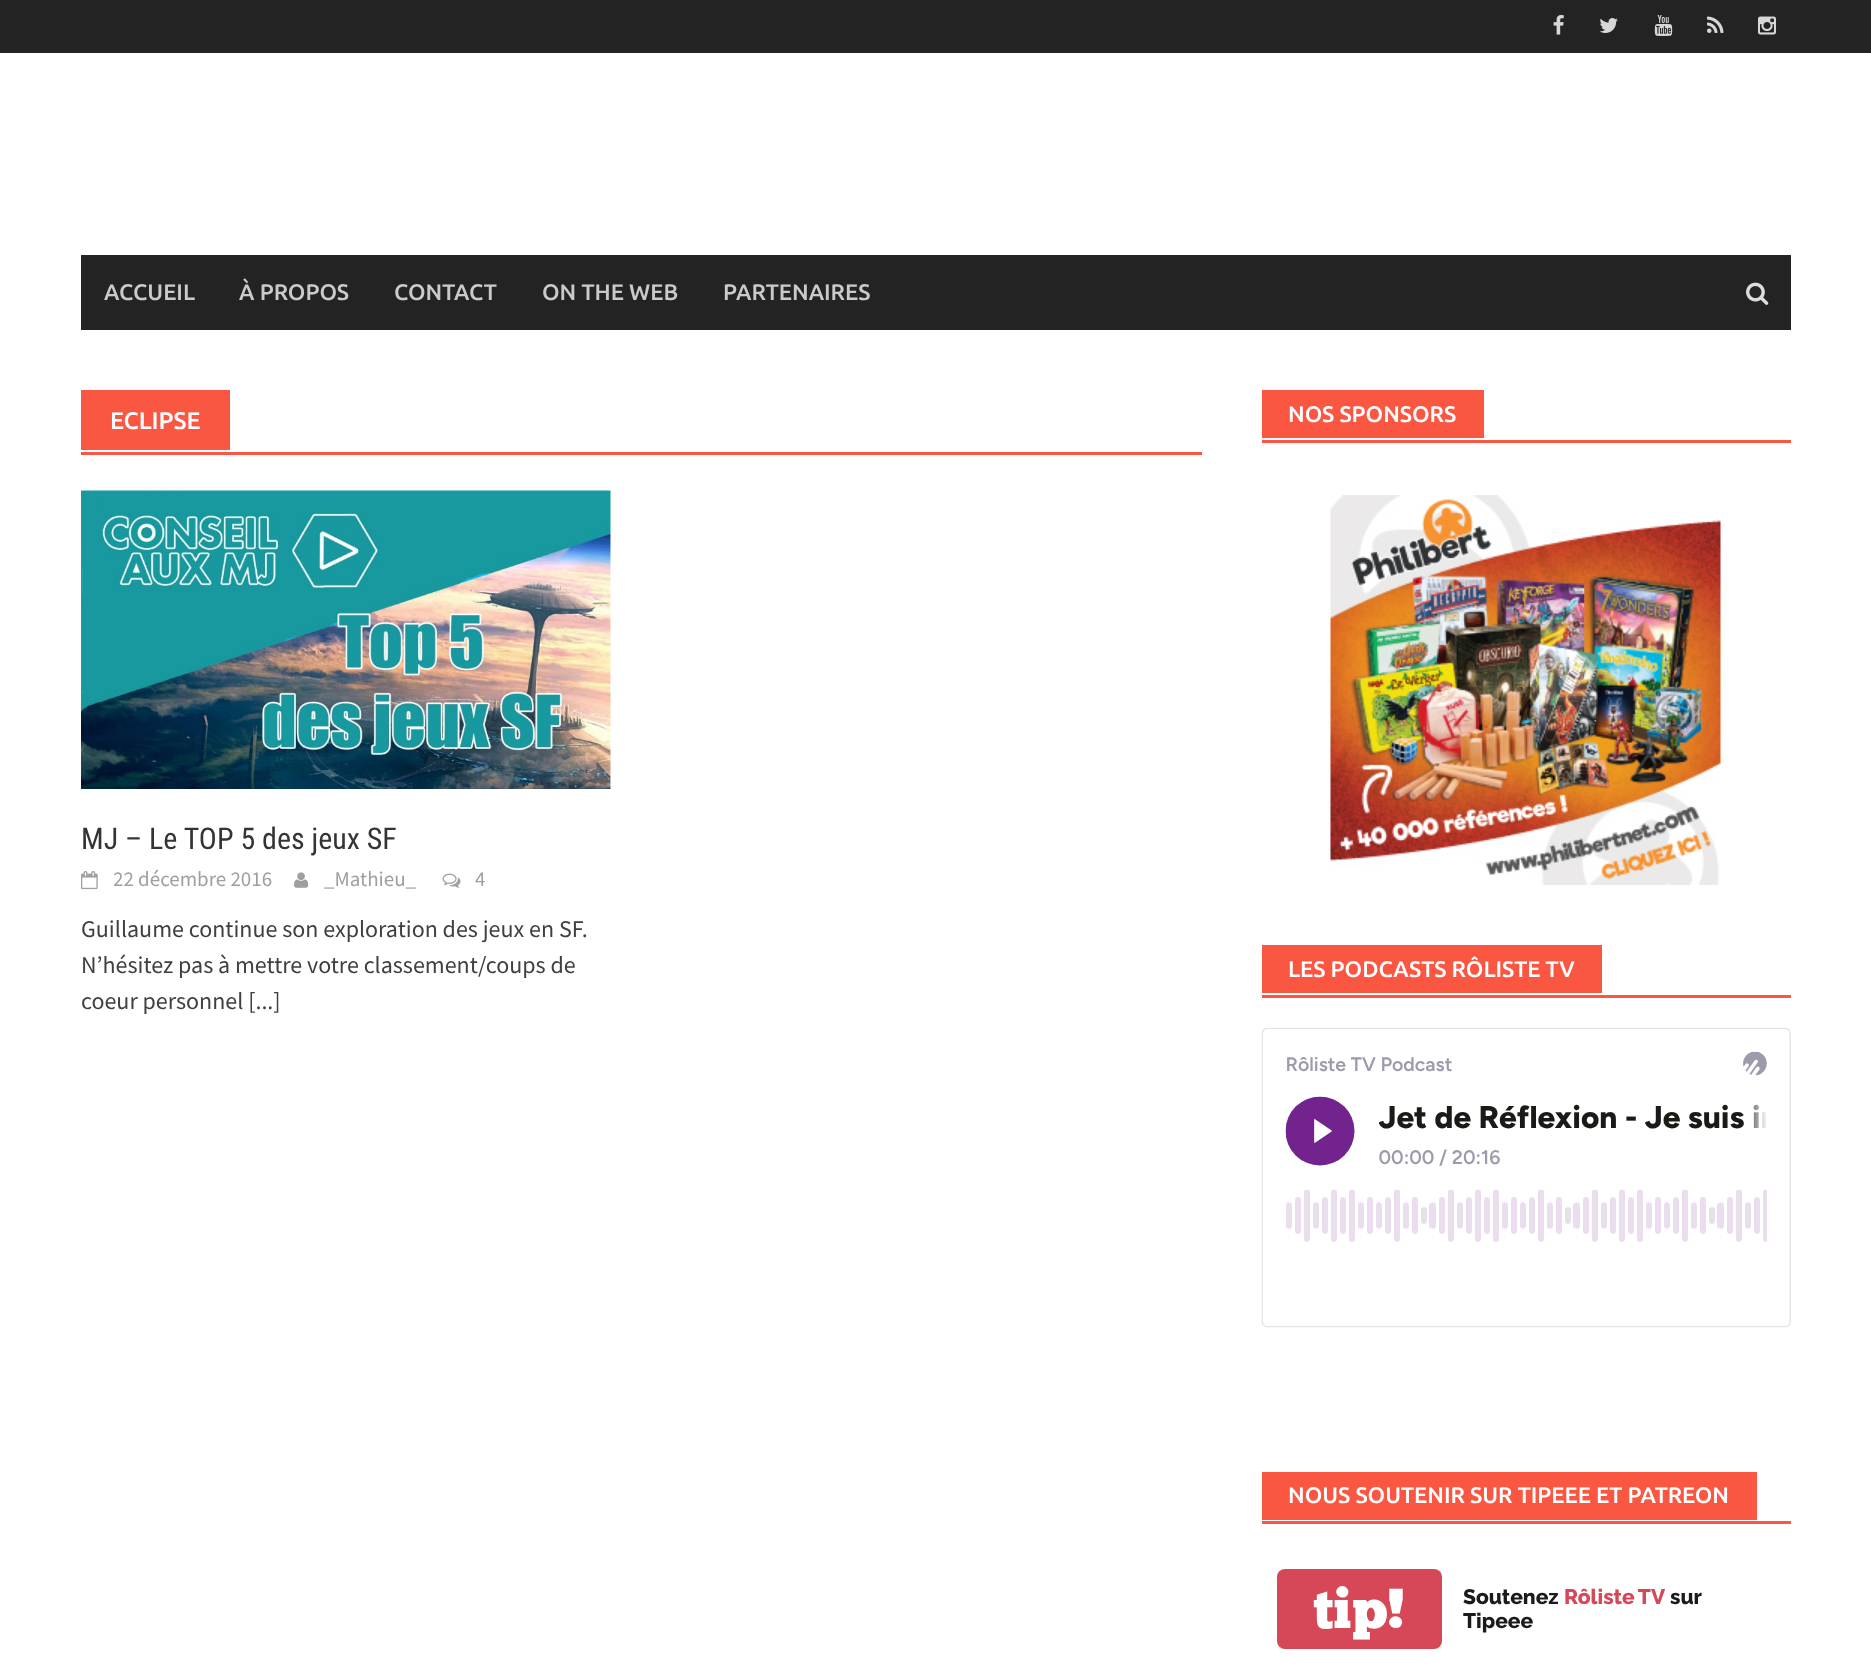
<?xml version="1.0" encoding="UTF-8"?>
<svg xmlns="http://www.w3.org/2000/svg" xmlns:xlink="http://www.w3.org/1999/xlink" width="1871" height="1672">
  <rect width="100%" height="100%" fill="#ffffff" />
  <rect width="1871" height="53" fill="#232323" />
  <image x="1553" y="15" width="11" height="20" xlink:href="image1.png" />
  <image x="1599" y="18" width="19" height="15" xlink:href="image2.png" />
  <image x="1654" y="15" width="19" height="21" xlink:href="image3.png" />
  <image x="1707" y="16" width="17" height="17" xlink:href="image4.png" />
  <image x="1758" y="16" width="18" height="19" xlink:href="image5.png" />
  <rect x="81" y="255" width="1710" height="75" fill="#232323" />
  <image x="1746" y="282" width="23" height="23" xlink:href="image6.png" />
  <rect x="81" y="452" width="1121" height="3" fill="#fa5742" />
  <rect x="81" y="390" width="149" height="60" fill="#fa5742" />
  <image x="81" y="490" width="530" height="299" xlink:href="image7.png" />
  <image x="81" y="871" width="17" height="19" xlink:href="image8.png" />
  <image x="294" y="872" width="15" height="16" xlink:href="image9.png" />
  <image x="442" y="873" width="19" height="15" xlink:href="image10.png" />
  <rect x="1262" y="440" width="529" height="3" fill="#fa5742" />
  <rect x="1262" y="390" width="222" height="48" fill="#fa5742" />
  <image x="1330" y="495" width="391" height="390" xlink:href="image11.png" />
  <rect x="1262" y="995" width="529" height="3" fill="#fa5742" />
  <rect x="1262" y="945" width="340" height="48" fill="#fa5742" />
  <image x="1261" y="1027" width="530" height="301" xlink:href="image12.png" />
  <rect x="1262" y="1521" width="529" height="3" fill="#fa5742" />
  <rect x="1262" y="1472" width="495" height="48" fill="#fa5742" />
  <rect x="1277" y="1569" width="165" height="80" rx="8" fill="#d64758" />
  <text x="104" y="300" style="font-family: Ubuntu; font-size: 22.5px; font-weight: 500; fill: #cacaca">ACCUEIL</text>
  <text x="239" y="300" style="font-family: Ubuntu; font-size: 22.5px; font-weight: 500; fill: #cacaca">À PROPOS</text>
  <text x="394" y="300" style="font-family: Ubuntu; font-size: 22.5px; font-weight: 500; fill: #cacaca">CONTACT</text>
  <text x="542" y="300" style="font-family: Ubuntu; font-size: 22.5px; font-weight: 500; fill: #cacaca">ON THE WEB</text>
  <text x="723" y="300" style="font-family: Ubuntu; font-size: 22.5px; font-weight: 500; fill: #cacaca">PARTENAIRES</text>
  <text x="110" y="429" style="font-family: Ubuntu; font-size: 24px; font-weight: 500; fill: #ffffff">ECLIPSE</text>
  <text x="81" y="849" style="font-family: Roboto Condensed; font-size: 30px; fill: #353434">MJ – Le TOP 5 des jeux SF</text>
  <text x="113" y="886" style="font-family: Source Sans Pro; font-size: 21px; fill: #9f9f9f">22 décembre 2016</text>
  <text x="324" y="886" style="font-family: Source Sans Pro; font-size: 21px; fill: #9f9f9f">_Mathieu_</text>
  <text x="475" y="886" style="font-family: Source Sans Pro; font-size: 21px; fill: #9f9f9f">4</text>
  <text x="81" y="937" style="font-family: Source Sans Pro; font-size: 24px; fill: #404040">Guillaume continue son exploration des jeux en SF.</text>
  <text x="81" y="973" style="font-family: Source Sans Pro; font-size: 24px; fill: #404040">N’hésitez pas à mettre votre classement/coups de</text>
  <text x="81" y="1009" style="font-family: Source Sans Pro; font-size: 24px; fill: #404040">coeur personnel [...]</text>
  <text x="1288" y="422" style="font-family: Ubuntu; font-size: 22.5px; font-weight: 500; fill: #ffffff">NOS SPONSORS</text>
  <text x="1288" y="977" style="font-family: Ubuntu; font-size: 22.5px; font-weight: 500; fill: #ffffff">LES PODCASTS RÔLISTE TV</text>
  <text x="1288" y="1503" style="font-family: Ubuntu; font-size: 22.5px; font-weight: 500; fill: #ffffff">NOUS SOUTENIR SUR TIPEEE ET PATREON</text>
  <text x="1313" y="1628" style="font-family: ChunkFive; font-size: 56px; fill: #ffffff">tip!</text>
  <text x="1463" y="1604" style="font-family: Raleway; font-size: 21px; font-weight: 100; fill: #1b1b1b">Soutenez</text>
  <text x="1564" y="1604" word-spacing="-1" style="font-family: Raleway; font-size: 21px; font-weight: 100; fill: #d64758">Rôliste TV</text>
  <text x="1670" y="1604" style="font-family: Raleway; font-size: 21px; font-weight: 100; fill: #1b1b1b">sur</text>
  <text x="1463" y="1628" style="font-family: Raleway; font-size: 21px; font-weight: 100; fill: #1b1b1b">Tipeee</text>
</svg>
